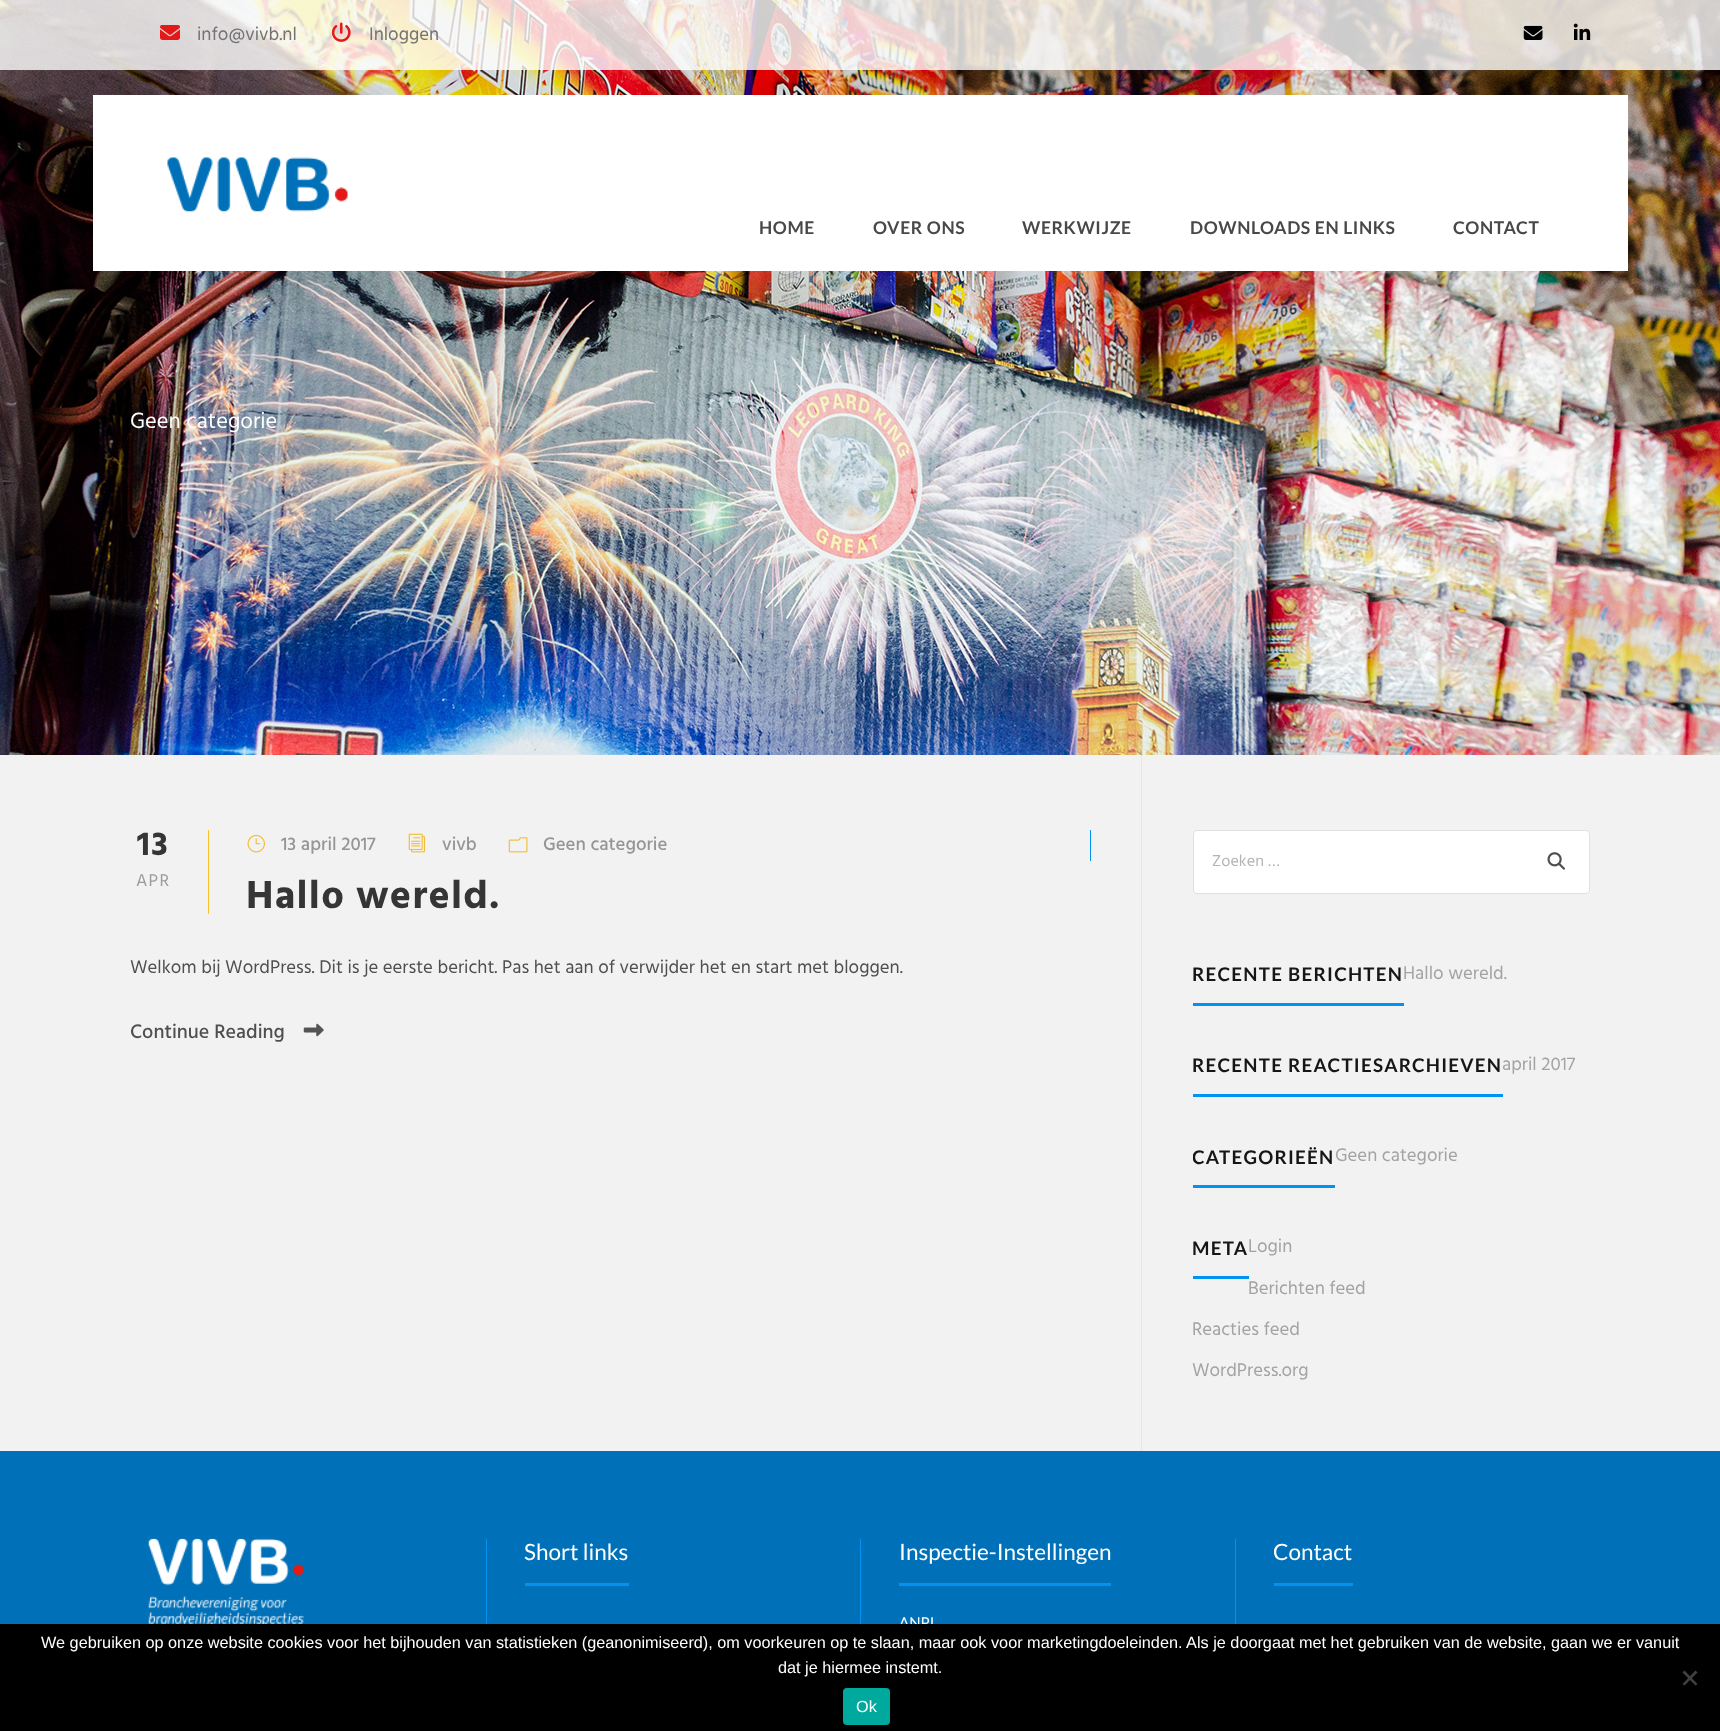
<?xml version="1.0" encoding="UTF-8"?>
<svg xmlns="http://www.w3.org/2000/svg" xmlns:xlink="http://www.w3.org/1999/xlink" width="1720" height="1731">
  <defs>
    <clipPath id="clip1"><rect x="1193" y="1145" width="142" height="40" /></clipPath>
  </defs>
  <rect width="100%" height="100%" fill="#f2f2f2" />
  <image x="0" y="0" width="1720" height="755" xlink:href="image6.png" />
  <rect width="1720" height="70" fill="#ffffff" fill-opacity="0.8" />
  <image x="160" y="25" width="20" height="15" xlink:href="image1.png" />
  <image x="331" y="22" width="20" height="20" xlink:href="image2.png" />
  <image x="1523" y="25" width="20" height="15" xlink:href="image3.png" />
  <image x="1573" y="23" width="18" height="17" xlink:href="image4.png" />
  <rect x="93" y="95" width="1535" height="176" fill="#ffffff" />
  <image x="167" y="157" width="181" height="55" xlink:href="image5.png" />
  <rect x="208" y="830" width="1" height="84" fill="#f8c12c" />
  <rect x="1090" y="830" width="1" height="31" fill="#0093f1" />
  <image x="247" y="834" width="18" height="19" xlink:href="image7.png" />
  <image x="408" y="833" width="18" height="20" xlink:href="image8.png" />
  <image x="508" y="837" width="20" height="16" xlink:href="image9.png" />
  <image x="303" y="1023" width="21" height="14" xlink:href="image10.png" />
  <rect x="1141" y="755" width="1" height="696" fill="#e6e6e6" />
  <rect x="1193.5" y="830.5" width="396" height="63" rx="3.5" fill="#ffffff" stroke="#e0e0e0" />
  <image x="1547" y="852" width="18" height="18" xlink:href="image11.png" />
  <rect x="1193" y="1003" width="211" height="3" fill="#0093f1" />
  <rect x="1193" y="1094" width="310" height="3" fill="#0093f1" />
  <rect x="1193" y="1185" width="142" height="3" fill="#0093f1" />
  <rect x="1193" y="1276" width="56" height="3" fill="#0093f1" />
  <rect y="1451" width="1720" height="173" fill="#0071b9" />
  <image x="148" y="1538" width="156" height="86" xlink:href="image12.png" />
  <rect x="486" y="1539" width="1" height="85" fill="#0093f1" />
  <rect x="525" y="1583" width="104" height="3" fill="#0093f1" />
  <rect x="860" y="1539" width="1" height="85" fill="#0093f1" />
  <rect x="899" y="1583" width="212" height="3" fill="#0093f1" />
  <rect x="1235" y="1539" width="1" height="85" fill="#0093f1" />
  <rect x="1274" y="1583" width="79" height="3" fill="#0093f1" />
  <text x="197" y="40" style="font-family: Hind; font-size: 18.75px; fill: #727272">info@vivb.nl</text>
  <text x="369" y="40" style="font-family: Hind; font-size: 18.75px; fill: #727272">Inloggen</text>
  <text x="759" y="234" style="font-family: Lato; font-size: 17.5px; font-weight: bold; letter-spacing: 0.6px; fill: #484848">HOME</text>
  <text x="873" y="234" style="font-family: Lato; font-size: 17.5px; font-weight: bold; letter-spacing: 0.6px; fill: #484848">OVER ONS</text>
  <text x="1022" y="234" style="font-family: Lato; font-size: 17.5px; font-weight: bold; letter-spacing: 0.6px; fill: #484848">WERKWIJZE</text>
  <text x="1190" y="234" style="font-family: Lato; font-size: 17.5px; font-weight: bold; letter-spacing: 0.6px; fill: #484848">DOWNLOADS EN LINKS</text>
  <text x="1453" y="234" style="font-family: Lato; font-size: 17.5px; font-weight: bold; letter-spacing: 0.6px; fill: #484848">CONTACT</text>
  <text x="130" y="428" style="font-family: Hind; font-size: 22.5px; fill: #ffffff">Geen categorie</text>
  <text x="137" y="855" style="font-family: Hind; font-size: 34px; font-weight: bold; letter-spacing: 1.25px; fill: #353535">13</text>
  <text x="136" y="886" style="font-family: Hind; font-size: 17.5px; letter-spacing: 1.25px; fill: #9b9b9b">APR</text>
  <text x="281" y="850" style="font-family: Hind; font-size: 18.75px; font-weight: 500; fill: #959595">13 april 2017</text>
  <text x="442" y="850" style="font-family: Hind; font-size: 18.75px; font-weight: 500; fill: #959595">vivb</text>
  <text x="543" y="850" style="font-family: Hind; font-size: 18.75px; font-weight: 500; fill: #959595">Geen categorie</text>
  <text x="246" y="908" style="font-family: Hind; font-size: 40px; font-weight: bold; letter-spacing: 1.25px; fill: #353535">Hallo wereld.</text>
  <text x="130" y="973" style="font-family: Hind; font-size: 18.75px; fill: #4f4f4f">Welkom bij WordPress. Dit is je eerste bericht. Pas het aan of verwijder het en start met bloggen.</text>
  <text x="130" y="1038" style="font-family: Hind; font-size: 20px; font-weight: 500; fill: #4f4f4f">Continue Reading</text>
  <text x="1212" y="866" style="font-family: Hind; font-size: 16.25px; fill: #b5b5b5">Zoeken …</text>
  <text x="1192" y="981" style="font-family: Lato; font-size: 18.75px; font-weight: bold; letter-spacing: 1.25px; fill: #161616">RECENTE BERICHTEN</text>
  <text x="1403" y="979" style="font-family: Hind; font-size: 18.75px; fill: #a3a3a3">Hallo wereld.</text>
  <text x="1192" y="1072" style="font-family: Lato; font-size: 18.75px; font-weight: bold; letter-spacing: 1.25px; fill: #161616">RECENTE REACTIESARCHIEVEN</text>
  <text x="1502" y="1070" style="font-family: Hind; font-size: 18.75px; fill: #a3a3a3">april 2017</text>
  <g clip-path="url(#clip1)">
    <text x="1192" y="1164" style="font-family: Lato; font-size: 18.75px; font-weight: bold; letter-spacing: 1.25px; fill: #161616">CATEGORIEËN</text>
  </g>
  <text x="1335" y="1161" style="font-family: Hind; font-size: 18.75px; fill: #a3a3a3">Geen categorie</text>
  <text x="1248" y="1252" style="font-family: Hind; font-size: 18.75px; fill: #a3a3a3">Login</text>
  <text x="1248" y="1294" style="font-family: Hind; font-size: 18.75px; fill: #a3a3a3">Berichten feed</text>
  <text x="1192" y="1335" style="font-family: Hind; font-size: 18.75px; fill: #a3a3a3">Reacties feed</text>
  <text x="1192" y="1376" style="font-family: Hind; font-size: 18.75px; fill: #a3a3a3">WordPress.org</text>
  <text x="1192" y="1255" style="font-family: Lato; font-size: 18.75px; font-weight: bold; letter-spacing: 1.25px; fill: #161616">META</text>
  <text x="524" y="1560" style="font-family: Lato; font-size: 22.5px; fill: #ffffff">Short links</text>
  <text x="899" y="1560" style="font-family: Lato; font-size: 22.5px; fill: #ffffff">Inspectie-Instellingen</text>
  <text x="899" y="1628" style="font-family: Lato; font-size: 15px; fill: #ffffff">ANPI</text>
  <text x="1273" y="1560" style="font-family: Lato; font-size: 22.5px; fill: #ffffff">Contact</text>
  <rect y="1624" width="1720" height="107" fill="#000000" />
  <text x="41" y="1648" style="font-family: Liberation Sans; font-size: 16.25px; fill: #ffffff">We gebruiken op onze website cookies voor het bijhouden van statistieken (geanonimiseerd), om voorkeuren op te slaan, maar ook voor marketingdoeleinden. Als je doorgaat met het gebruiken van de website, gaan we er vanuit</text>
  <text x="778" y="1673" style="font-family: Liberation Sans; font-size: 16.25px; fill: #ffffff">dat je hiermee instemt.</text>
  <path d="M 1695.5 1670.5 l 2 2 l -13 13 l -2 -1.5 z" fill="#404040" />
  <path d="M 1682.5 1672.5 l 2 -2 l 13 13.5 l -2 1.5 z" fill="#404040" />
  <rect x="843" y="1688" width="47" height="37" rx="4" fill="#00a99d" />
  <text x="856" y="1712" style="font-family: Liberation Sans; font-size: 16.25px; fill: #ffffff">Ok</text>
</svg>
